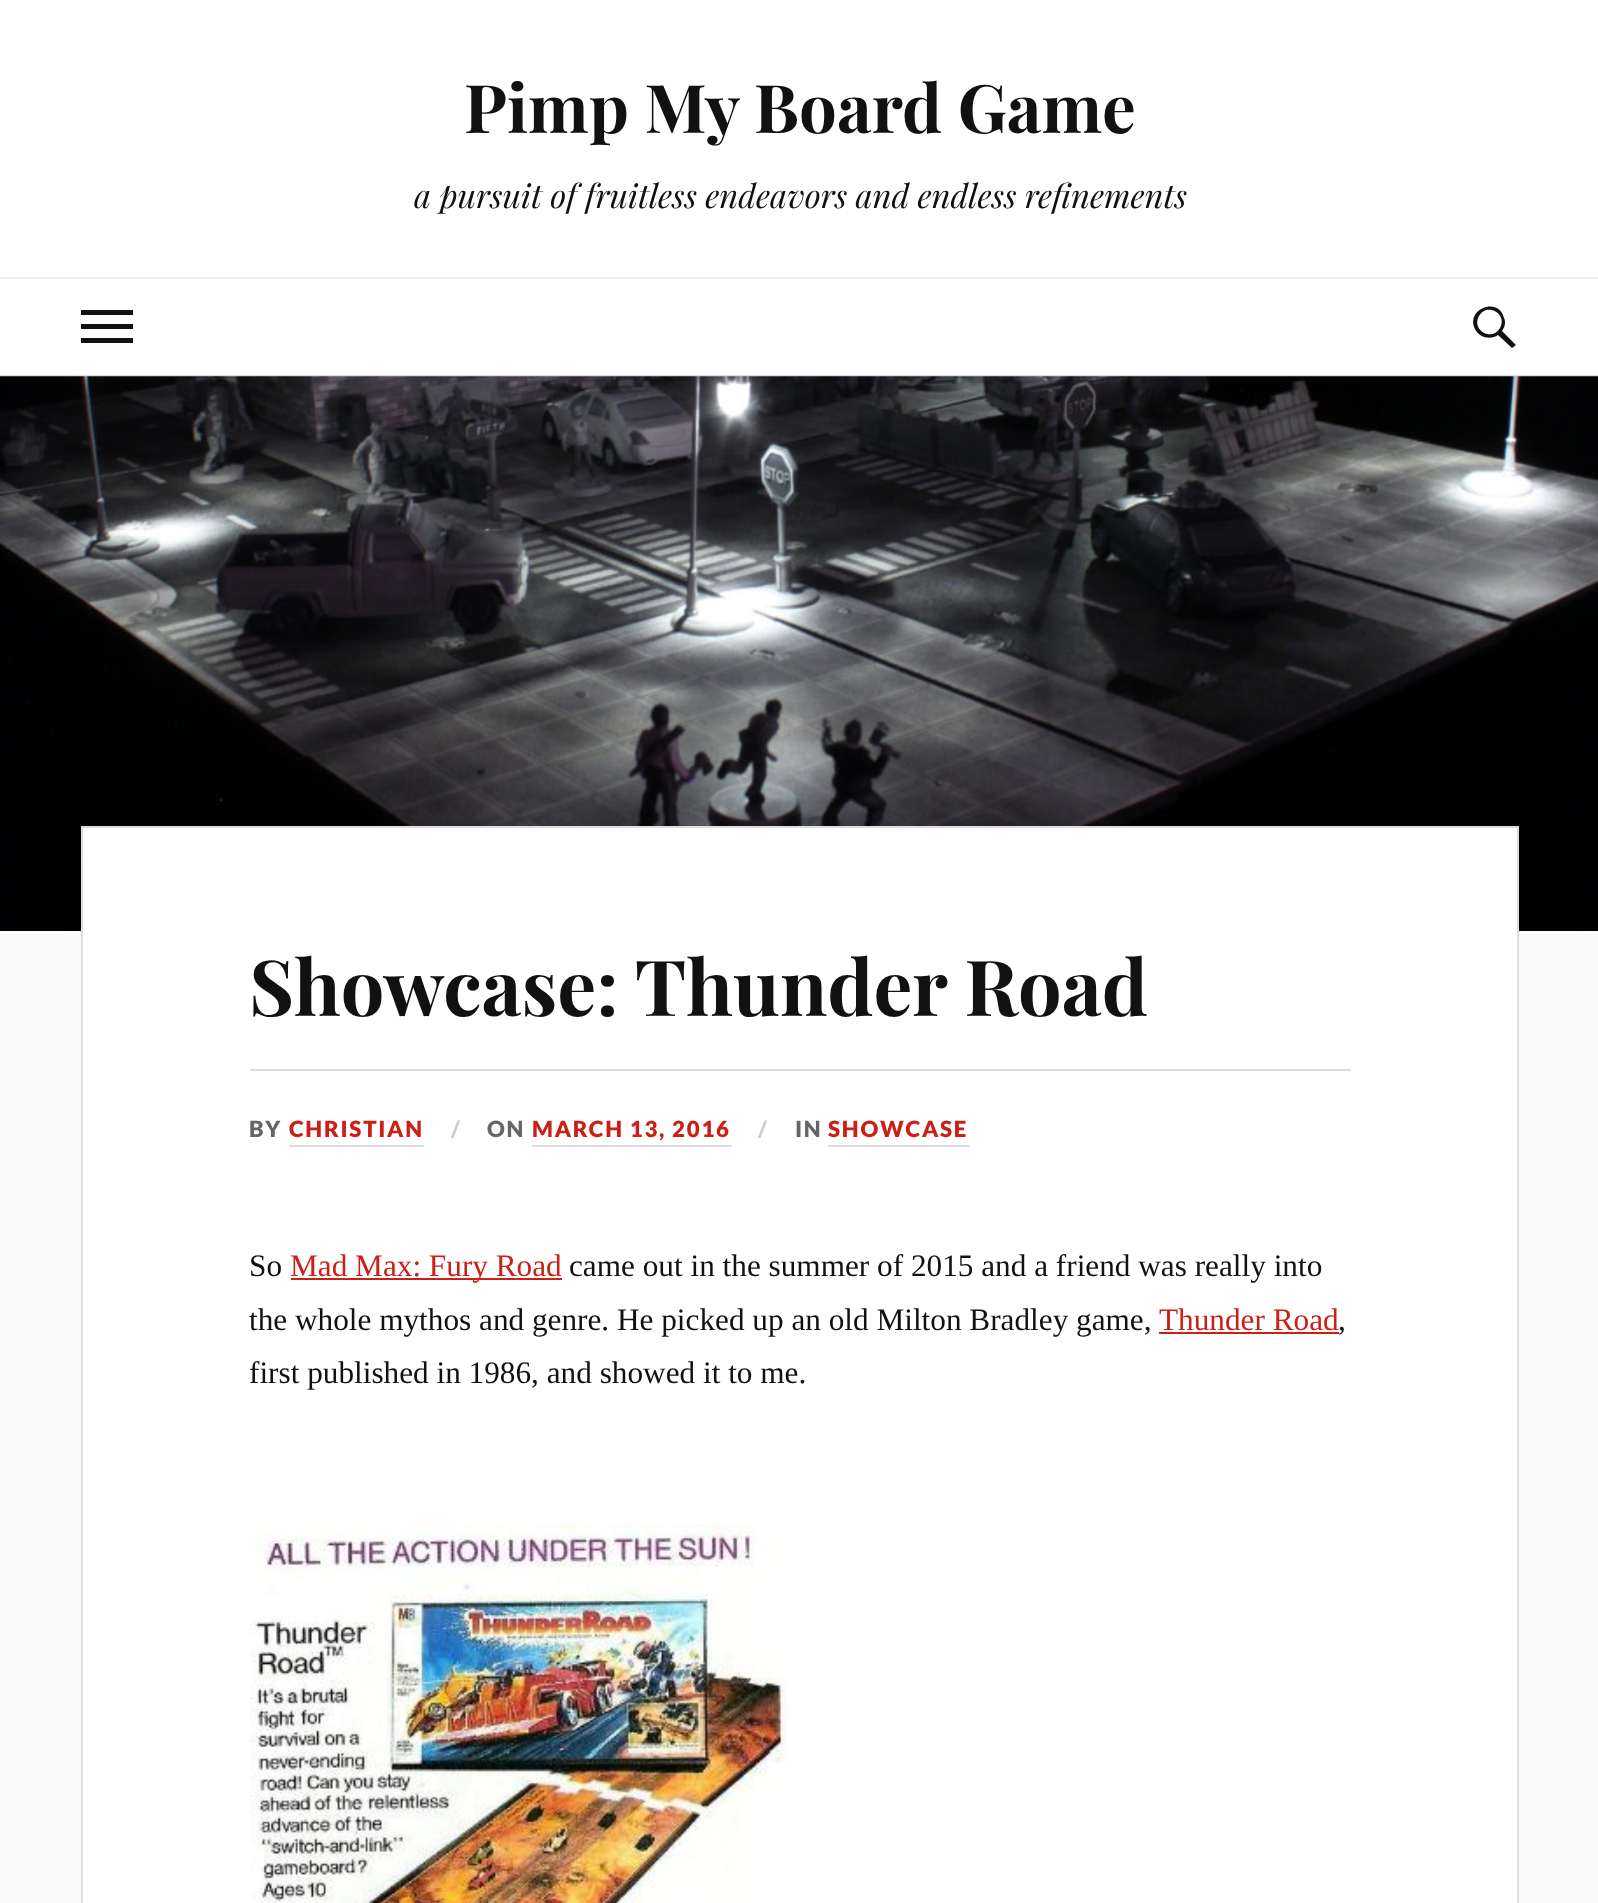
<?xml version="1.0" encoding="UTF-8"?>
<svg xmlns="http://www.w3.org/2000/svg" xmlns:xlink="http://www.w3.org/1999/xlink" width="1598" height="1903">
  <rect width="100%" height="100%" fill="#fafafa" />
  <rect width="1598" height="277" fill="#ffffff" />
  <rect y="279" width="1598" height="96" fill="#ffffff" />
  <rect y="277" width="1598" height="2" fill="#eeeeee" />
  <rect x="81" y="310" width="52" height="5" fill="#111111" />
  <rect x="81" y="324" width="52" height="5" fill="#111111" />
  <rect x="81" y="338" width="52" height="5" fill="#111111" />
  <path d="M 1516 345 l -4 3 l -14 -13 c -7 5 -19 3 -23 -6 c -10 -20 24 -33 29 -11 c 2 4 1 9 -2 13 z m -37 -29 c -8 14 13 26 21 12 c 8 -14 -13 -26 -21 -12 z" fill="#111111" />
  <rect y="375" width="1598" height="2" fill="#dddddd" />
  <image x="0" y="376" width="1598" height="555" xlink:href="image1.png" />
  <rect x="82" y="827" width="1436" height="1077" fill="#ffffff" stroke="#dddddd" stroke-width="2" />
  <rect x="250" y="1069" width="1101" height="2" fill="#dddddd" />
  <rect x="289" y="1145" width="135" height="2" fill="#dddddd" />
  <rect x="532" y="1145" width="200" height="2" fill="#dddddd" />
  <rect x="828" y="1145" width="142" height="2" fill="#dddddd" />
  <rect x="291" y="1278" width="271" height="2" fill="#ca2017" />
  <rect x="1159" y="1332" width="180" height="2" fill="#ca2017" />
  <image x="250" y="1524" width="538" height="379" xlink:href="image2.png" />
  <text x="464" y="133" style="font-family: Playfair Display; font-size: 67px; font-weight: bold; fill: #111111">Pimp My Board Game</text>
  <text x="414" y="208" style="font-family: Playfair Display; font-size: 32.75px; font-style: italic; fill: #111111">a pursuit of fruitless endeavors and endless refinements</text>
  <text x="249" y="1016" style="font-family: Playfair Display; font-size: 77.3px; font-weight: bold; fill: #111111">Showcase: Thunder Road</text>
  <text x="249" y="1137" style="font-family: Lato; font-size: 22.25px; font-weight: 900; letter-spacing: 1.75px; fill: #666666">BY</text>
  <text x="289" y="1137" style="font-family: Lato; font-size: 22.25px; font-weight: 900; letter-spacing: 1.75px; fill: #ca2017">CHRISTIAN</text>
  <text x="451" y="1137" style="font-family: Lato; font-size: 22.25px; font-weight: 900; letter-spacing: 1.75px; fill: #cccccc">/</text>
  <text x="487" y="1137" style="font-family: Lato; font-size: 22.25px; font-weight: 900; letter-spacing: 1.75px; fill: #666666">ON</text>
  <text x="532" y="1137" style="font-family: Lato; font-size: 22.25px; font-weight: 900; letter-spacing: 1.75px; fill: #ca2017">MARCH 13, 2016</text>
  <text x="758" y="1137" style="font-family: Lato; font-size: 22.25px; font-weight: 900; letter-spacing: 1.75px; fill: #cccccc">/</text>
  <text x="795" y="1137" style="font-family: Lato; font-size: 22.25px; font-weight: 900; letter-spacing: 1.75px; fill: #666666">IN</text>
  <text x="828" y="1137" style="font-family: Lato; font-size: 22.25px; font-weight: 900; letter-spacing: 1.75px; fill: #ca2017">SHOWCASE</text>
  <text x="249" y="1276" style="font-family: Liberation Serif; font-size: 31.25px; fill: #111111">So</text>
  <text x="290" y="1276" style="font-family: Liberation Serif; font-size: 31.25px; fill: #ca2017">Mad Max: Fury Road</text>
  <text x="569" y="1276" style="font-family: Liberation Serif; font-size: 31.25px; fill: #111111">came out in the summer of 2015 and a friend was really into</text>
  <text x="249" y="1330" style="font-family: Liberation Serif; font-size: 31.25px; fill: #111111">the whole mythos and genre. He picked up an old Milton Bradley game,</text>
  <text x="1159" y="1330" style="font-family: Liberation Serif; font-size: 31.25px; fill: #ca2017">Thunder Road</text>
  <text x="1338" y="1330" style="font-family: Liberation Serif; font-size: 31.25px; fill: #111111">,</text>
  <text x="249" y="1383" style="font-family: Liberation Serif; font-size: 31.25px; fill: #111111">first published in 1986, and showed it to me.</text>
</svg>
